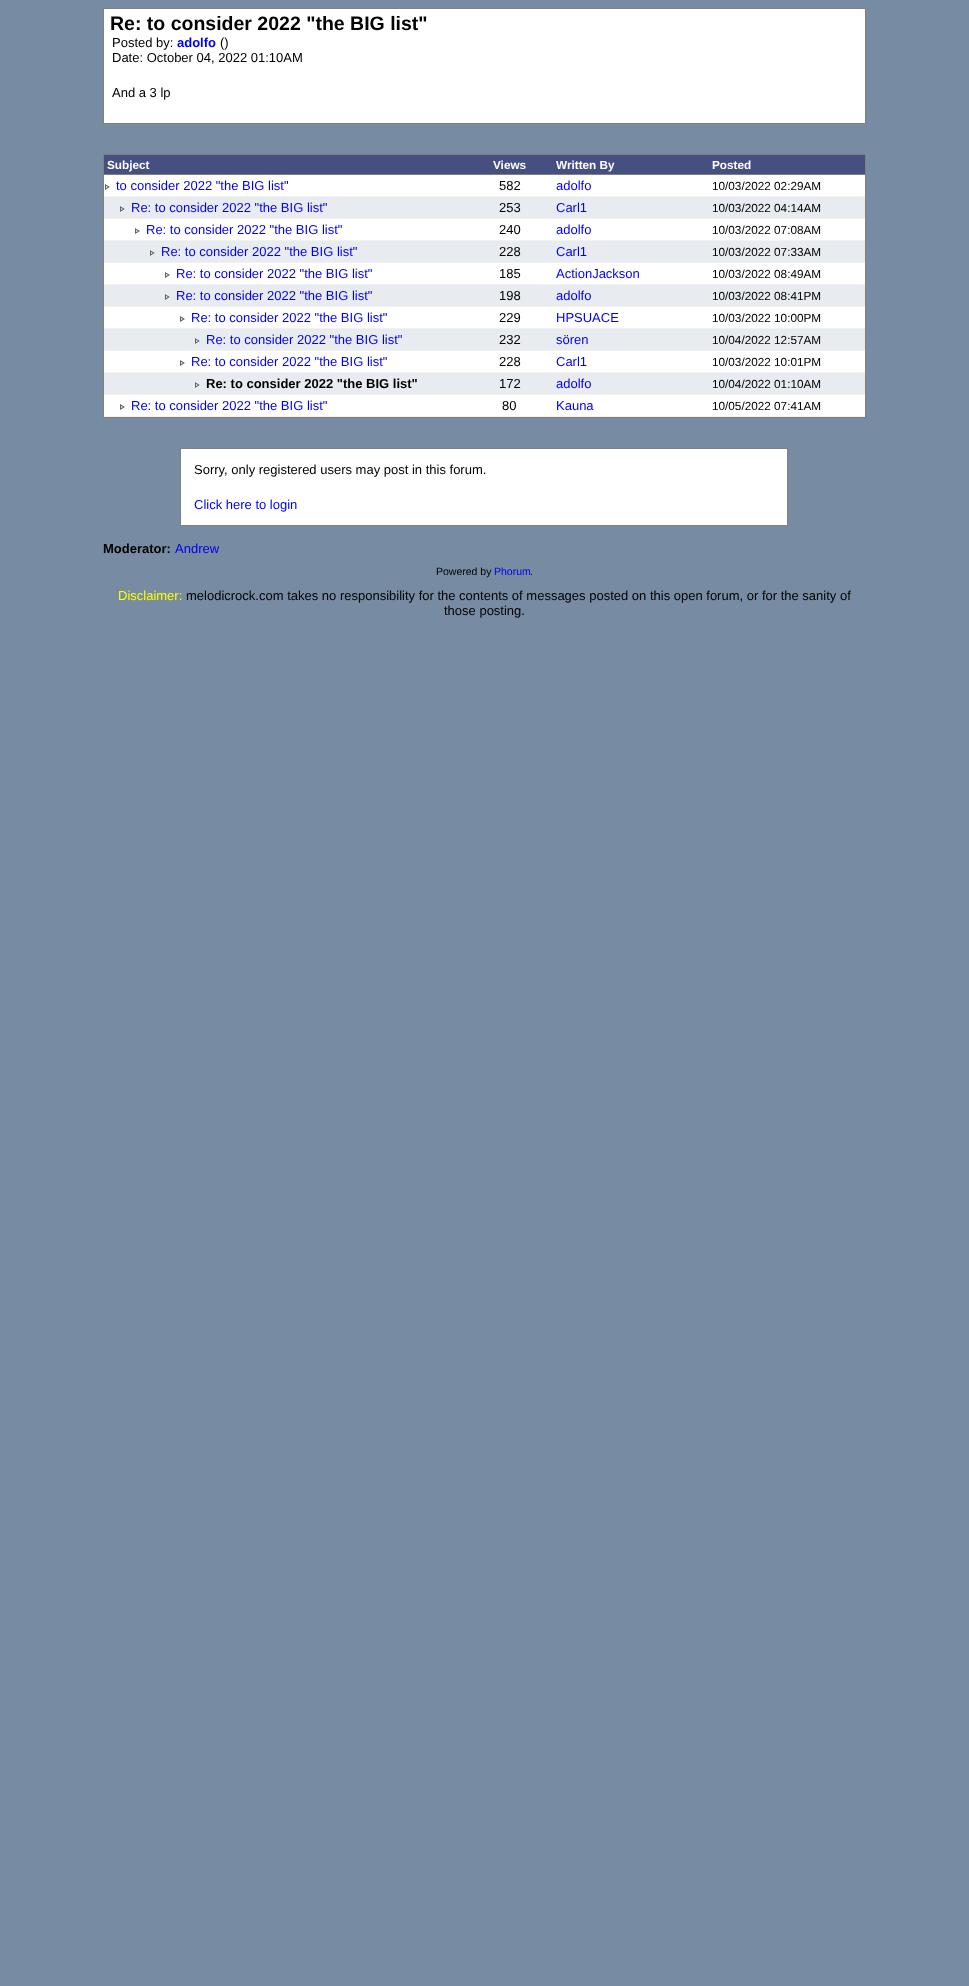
<?xml version="1.0" encoding="UTF-8"?>
<svg xmlns="http://www.w3.org/2000/svg" xmlns:xlink="http://www.w3.org/1999/xlink" width="969" height="1986">
  <rect width="100%" height="100%" fill="#778ba2" />
  <rect x="103.5" y="8.5" width="762" height="115" fill="#ffffff" stroke="#808080" />
  <rect x="103.5" y="154.5" width="762" height="263" fill="none" stroke="#808080" />
  <rect x="104" y="155" width="761" height="19" fill="#455081" />
  <rect x="104" y="174" width="761" height="1" fill="#808080" />
  <rect x="104" y="175" width="761" height="21" fill="#ffffff" />
  <rect x="104" y="196" width="761" height="1" fill="#f2f2f2" />
  <image x="105" y="184" width="5" height="6" xlink:href="image1.png" />
  <rect x="104" y="197" width="761" height="21" fill="#e8ebef" />
  <rect x="104" y="218" width="761" height="1" fill="#f2f2f2" />
  <image x="120" y="206" width="5" height="6" xlink:href="image2.png" />
  <rect x="104" y="219" width="761" height="21" fill="#ffffff" />
  <rect x="104" y="240" width="761" height="1" fill="#f2f2f2" />
  <image x="135" y="228" width="5" height="6" xlink:href="image1.png" />
  <rect x="104" y="241" width="761" height="21" fill="#e8ebef" />
  <rect x="104" y="262" width="761" height="1" fill="#f2f2f2" />
  <image x="150" y="250" width="5" height="6" xlink:href="image2.png" />
  <rect x="104" y="263" width="761" height="21" fill="#ffffff" />
  <rect x="104" y="284" width="761" height="1" fill="#f2f2f2" />
  <image x="165" y="272" width="5" height="6" xlink:href="image1.png" />
  <rect x="104" y="285" width="761" height="21" fill="#e8ebef" />
  <rect x="104" y="306" width="761" height="1" fill="#f2f2f2" />
  <image x="165" y="294" width="5" height="6" xlink:href="image2.png" />
  <rect x="104" y="307" width="761" height="21" fill="#ffffff" />
  <rect x="104" y="328" width="761" height="1" fill="#f2f2f2" />
  <image x="180" y="316" width="5" height="6" xlink:href="image1.png" />
  <rect x="104" y="329" width="761" height="21" fill="#e8ebef" />
  <rect x="104" y="350" width="761" height="1" fill="#f2f2f2" />
  <image x="195" y="338" width="5" height="6" xlink:href="image2.png" />
  <rect x="104" y="351" width="761" height="21" fill="#ffffff" />
  <rect x="104" y="372" width="761" height="1" fill="#f2f2f2" />
  <image x="180" y="360" width="5" height="6" xlink:href="image1.png" />
  <rect x="104" y="373" width="761" height="21" fill="#e8ebef" />
  <rect x="104" y="394" width="761" height="1" fill="#f2f2f2" />
  <image x="195" y="382" width="5" height="6" xlink:href="image2.png" />
  <rect x="104" y="395" width="761" height="21" fill="#ffffff" />
  <rect x="104" y="416" width="761" height="1" fill="#f2f2f2" />
  <image x="120" y="404" width="5" height="6" xlink:href="image1.png" />
  <rect x="180.5" y="448.5" width="607" height="77" fill="#ffffff" stroke="#808080" />
  <text x="110" y="30" style="font-family: Liberation Sans; font-size: 19.5px; font-weight: bold; fill: #000000">Re: to consider 2022 "the BIG list"</text>
  <text x="112" y="47" style="font-family: Liberation Sans; font-size: 13px; fill: #000000">Posted by:</text>
  <text x="177" y="47" style="font-family: Liberation Sans; font-size: 13px; font-weight: bold; fill: #0000ee">adolfo</text>
  <text x="220" y="47" style="font-family: Liberation Sans; font-size: 13px; fill: #000000">()</text>
  <text x="112" y="62" style="font-family: Liberation Sans; font-size: 13px; fill: #000000">Date: October 04, 2022 01:10AM</text>
  <text x="112" y="97" style="font-family: Liberation Sans; font-size: 13px; fill: #000000">And a 3 lp</text>
  <text x="107" y="169" style="font-family: Liberation Sans; font-size: 11.75px; font-weight: bold; fill: #ffffff">Subject</text>
  <text x="493" y="169" style="font-family: Liberation Sans; font-size: 11.75px; font-weight: bold; fill: #ffffff">Views</text>
  <text x="556" y="169" style="font-family: Liberation Sans; font-size: 11.75px; font-weight: bold; fill: #ffffff">Written By</text>
  <text x="712" y="169" style="font-family: Liberation Sans; font-size: 11.75px; font-weight: bold; fill: #ffffff">Posted</text>
  <text x="116" y="190" style="font-family: Liberation Sans; font-size: 13px; fill: #0000ee">to consider 2022 "the BIG list"</text>
  <text x="499" y="190" style="font-family: Liberation Sans; font-size: 13px; fill: #000000">582</text>
  <text x="556" y="190" style="font-family: Liberation Sans; font-size: 13px; fill: #0000ee">adolfo</text>
  <text x="712" y="190" style="font-family: Liberation Sans; font-size: 11.75px; fill: #000000">10/03/2022 02:29AM</text>
  <text x="131" y="212" style="font-family: Liberation Sans; font-size: 13px; fill: #0000ee">Re: to consider 2022 "the BIG list"</text>
  <text x="499" y="212" style="font-family: Liberation Sans; font-size: 13px; fill: #000000">253</text>
  <text x="556" y="212" style="font-family: Liberation Sans; font-size: 13px; fill: #0000ee">Carl1</text>
  <text x="712" y="212" style="font-family: Liberation Sans; font-size: 11.75px; fill: #000000">10/03/2022 04:14AM</text>
  <text x="146" y="234" style="font-family: Liberation Sans; font-size: 13px; fill: #0000ee">Re: to consider 2022 "the BIG list"</text>
  <text x="499" y="234" style="font-family: Liberation Sans; font-size: 13px; fill: #000000">240</text>
  <text x="556" y="234" style="font-family: Liberation Sans; font-size: 13px; fill: #0000ee">adolfo</text>
  <text x="712" y="234" style="font-family: Liberation Sans; font-size: 11.75px; fill: #000000">10/03/2022 07:08AM</text>
  <text x="161" y="256" style="font-family: Liberation Sans; font-size: 13px; fill: #0000ee">Re: to consider 2022 "the BIG list"</text>
  <text x="499" y="256" style="font-family: Liberation Sans; font-size: 13px; fill: #000000">228</text>
  <text x="556" y="256" style="font-family: Liberation Sans; font-size: 13px; fill: #0000ee">Carl1</text>
  <text x="712" y="256" style="font-family: Liberation Sans; font-size: 11.75px; fill: #000000">10/03/2022 07:33AM</text>
  <text x="176" y="278" style="font-family: Liberation Sans; font-size: 13px; fill: #0000ee">Re: to consider 2022 "the BIG list"</text>
  <text x="499" y="278" style="font-family: Liberation Sans; font-size: 13px; fill: #000000">185</text>
  <text x="556" y="278" style="font-family: Liberation Sans; font-size: 13px; fill: #0000ee">ActionJackson</text>
  <text x="712" y="278" style="font-family: Liberation Sans; font-size: 11.75px; fill: #000000">10/03/2022 08:49AM</text>
  <text x="176" y="300" style="font-family: Liberation Sans; font-size: 13px; fill: #0000ee">Re: to consider 2022 "the BIG list"</text>
  <text x="499" y="300" style="font-family: Liberation Sans; font-size: 13px; fill: #000000">198</text>
  <text x="556" y="300" style="font-family: Liberation Sans; font-size: 13px; fill: #0000ee">adolfo</text>
  <text x="712" y="300" style="font-family: Liberation Sans; font-size: 11.75px; fill: #000000">10/03/2022 08:41PM</text>
  <text x="191" y="322" style="font-family: Liberation Sans; font-size: 13px; fill: #0000ee">Re: to consider 2022 "the BIG list"</text>
  <text x="499" y="322" style="font-family: Liberation Sans; font-size: 13px; fill: #000000">229</text>
  <text x="556" y="322" style="font-family: Liberation Sans; font-size: 13px; fill: #0000ee">HPSUACE</text>
  <text x="712" y="322" style="font-family: Liberation Sans; font-size: 11.75px; fill: #000000">10/03/2022 10:00PM</text>
  <text x="206" y="344" style="font-family: Liberation Sans; font-size: 13px; fill: #0000ee">Re: to consider 2022 "the BIG list"</text>
  <text x="499" y="344" style="font-family: Liberation Sans; font-size: 13px; fill: #000000">232</text>
  <text x="556" y="344" style="font-family: Liberation Sans; font-size: 13px; fill: #0000ee">sören</text>
  <text x="712" y="344" style="font-family: Liberation Sans; font-size: 11.75px; fill: #000000">10/04/2022 12:57AM</text>
  <text x="191" y="366" style="font-family: Liberation Sans; font-size: 13px; fill: #0000ee">Re: to consider 2022 "the BIG list"</text>
  <text x="499" y="366" style="font-family: Liberation Sans; font-size: 13px; fill: #000000">228</text>
  <text x="556" y="366" style="font-family: Liberation Sans; font-size: 13px; fill: #0000ee">Carl1</text>
  <text x="712" y="366" style="font-family: Liberation Sans; font-size: 11.75px; fill: #000000">10/03/2022 10:01PM</text>
  <text x="206" y="388" style="font-family: Liberation Sans; font-size: 13px; font-weight: bold; fill: #000000">Re: to consider 2022 "the BIG list"</text>
  <text x="499" y="388" style="font-family: Liberation Sans; font-size: 13px; fill: #000000">172</text>
  <text x="556" y="388" style="font-family: Liberation Sans; font-size: 13px; fill: #0000ee">adolfo</text>
  <text x="712" y="388" style="font-family: Liberation Sans; font-size: 11.75px; fill: #000000">10/04/2022 01:10AM</text>
  <text x="131" y="410" style="font-family: Liberation Sans; font-size: 13px; fill: #0000ee">Re: to consider 2022 "the BIG list"</text>
  <text x="502" y="410" style="font-family: Liberation Sans; font-size: 13px; fill: #000000">80</text>
  <text x="556" y="410" style="font-family: Liberation Sans; font-size: 13px; fill: #0000ee">Kauna</text>
  <text x="712" y="410" style="font-family: Liberation Sans; font-size: 11.75px; fill: #000000">10/05/2022 07:41AM</text>
  <text x="194" y="474" style="font-family: Liberation Sans; font-size: 13px; fill: #000000">Sorry, only registered users may post in this forum.</text>
  <text x="194" y="509" style="font-family: Liberation Sans; font-size: 13px; fill: #0000ee">Click here to login</text>
  <text x="103" y="553" style="font-family: Liberation Sans; font-size: 13px; font-weight: bold; fill: #000000">Moderator:</text>
  <text x="175" y="553" style="font-family: Liberation Sans; font-size: 13px; fill: #0000ee">Andrew</text>
  <text x="436" y="575" style="font-family: Liberation Sans; font-size: 10.5px; fill: #000000">Powered by</text>
  <text x="494" y="575" style="font-family: Liberation Sans; font-size: 10.5px; fill: #0000ee">Phorum</text>
  <text x="530" y="575" style="font-family: Liberation Sans; font-size: 10.5px; fill: #000000">.</text>
  <text x="118" y="600" style="font-family: Liberation Sans; font-size: 13px; fill: #ffff00">Disclaimer:</text>
  <text x="186" y="600" style="font-family: Liberation Sans; font-size: 13px; fill: #000000">melodicrock.com takes no responsibility for the contents of messages posted on this open forum, or for the sanity of</text>
  <text x="444" y="615" style="font-family: Liberation Sans; font-size: 13px; fill: #000000">those posting.</text>
</svg>
